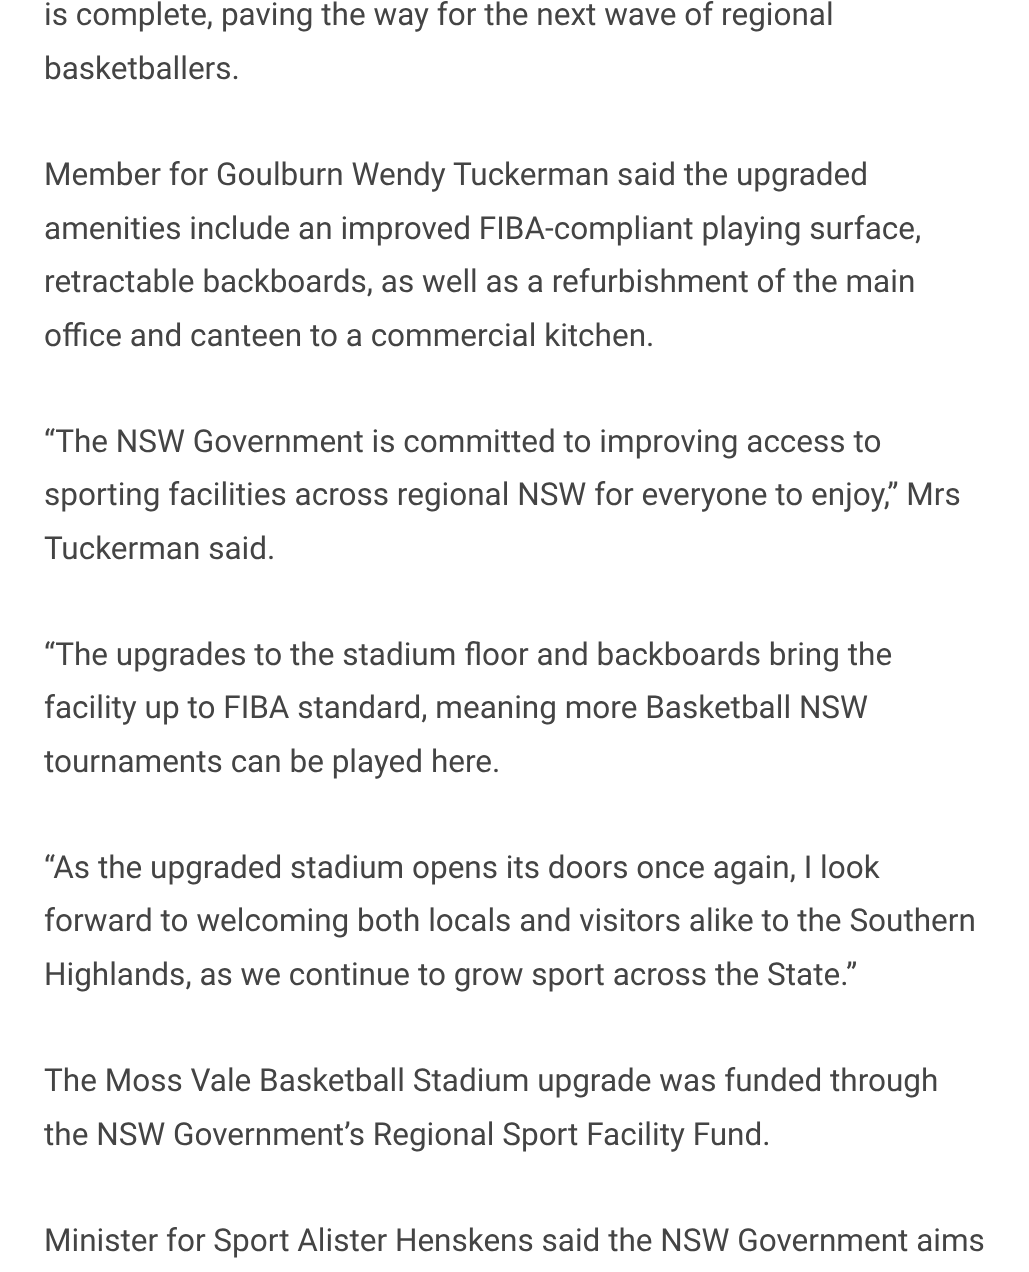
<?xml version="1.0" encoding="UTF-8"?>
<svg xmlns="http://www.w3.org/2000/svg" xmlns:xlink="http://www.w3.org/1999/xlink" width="1029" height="1272">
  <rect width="100%" height="100%" fill="#ffffff" />
  <text x="44" y="25" style="font-family: Roboto; font-size: 31.5px; fill: #444444">is complete, paving the way for the next wave of regional</text>
  <text x="44" y="79" style="font-family: Roboto; font-size: 31.5px; fill: #444444">basketballers.</text>
  <text x="44" y="185" style="font-family: Roboto; font-size: 31.5px; fill: #444444">Member for Goulburn Wendy Tuckerman said the upgraded</text>
  <text x="44" y="239" style="font-family: Roboto; font-size: 31.5px; fill: #444444">amenities include an improved FIBA-compliant playing surface,</text>
  <text x="44" y="292" style="font-family: Roboto; font-size: 31.5px; fill: #444444">retractable backboards, as well as a refurbishment of the main</text>
  <text x="44" y="346" style="font-family: Roboto; font-size: 31.5px; fill: #444444">office and canteen to a commercial kitchen.</text>
  <text x="44" y="452" style="font-family: Roboto; font-size: 31.5px; fill: #444444">“The NSW Government is committed to improving access to</text>
  <text x="44" y="505" style="font-family: Roboto; font-size: 31.5px; fill: #444444">sporting facilities across regional NSW for everyone to enjoy,” Mrs</text>
  <text x="44" y="559" style="font-family: Roboto; font-size: 31.5px; fill: #444444">Tuckerman said.</text>
  <text x="44" y="665" style="font-family: Roboto; font-size: 31.5px; fill: #444444">“The upgrades to the stadium floor and backboards bring the</text>
  <text x="44" y="718" style="font-family: Roboto; font-size: 31.5px; fill: #444444">facility up to FIBA standard, meaning more Basketball NSW</text>
  <text x="44" y="772" style="font-family: Roboto; font-size: 31.5px; fill: #444444">tournaments can be played here.</text>
  <text x="44" y="878" style="font-family: Roboto; font-size: 31.5px; fill: #444444">“As the upgraded stadium opens its doors once again, I look</text>
  <text x="44" y="931" style="font-family: Roboto; font-size: 31.5px; fill: #444444">forward to welcoming both locals and visitors alike to the Southern</text>
  <text x="44" y="985" style="font-family: Roboto; font-size: 31.5px; fill: #444444">Highlands, as we continue to grow sport across the State.”</text>
  <text x="44" y="1091" style="font-family: Roboto; font-size: 31.5px; fill: #444444">The Moss Vale Basketball Stadium upgrade was funded through</text>
  <text x="44" y="1145" style="font-family: Roboto; font-size: 31.5px; fill: #444444">the NSW Government’s Regional Sport Facility Fund.</text>
  <text x="44" y="1251" style="font-family: Roboto; font-size: 31.5px; fill: #444444">Minister for Sport Alister Henskens said the NSW Government aims</text>
</svg>
